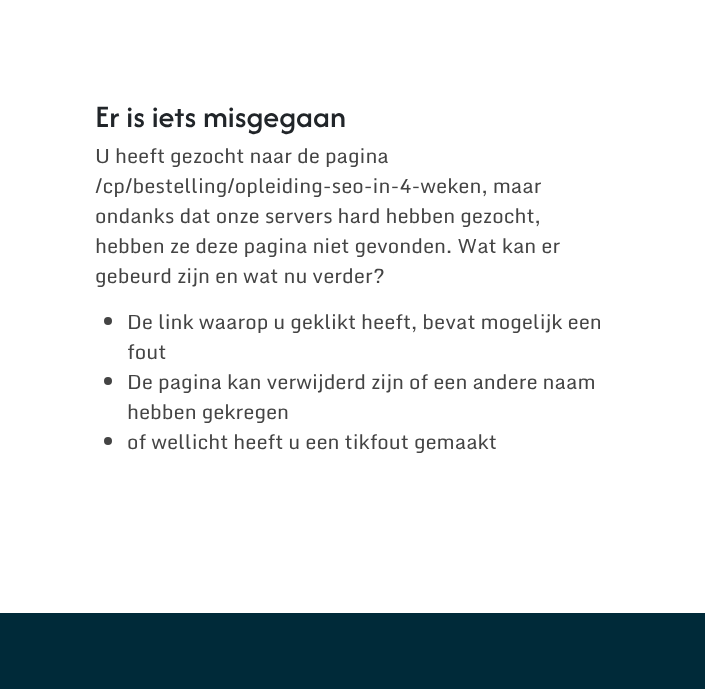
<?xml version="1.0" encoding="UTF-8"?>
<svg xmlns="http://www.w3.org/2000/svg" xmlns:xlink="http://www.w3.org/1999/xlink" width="705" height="689">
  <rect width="100%" height="100%" fill="#ffffff" />
  <circle cx="108" cy="321" r="4" fill="#444444" />
  <circle cx="108" cy="381" r="4" fill="#444444" />
  <circle cx="108" cy="441" r="4" fill="#444444" />
  <rect y="613" width="705" height="76" fill="#002a39" />
  <text x="95" y="127" style="font-family: Afacad Flux; font-size: 32.5px; font-weight: 500; fill: #212529">Er is iets misgegaan</text>
  <text x="95" y="163" style="font-family: Monda; font-size: 20px; fill: #444444">U heeft gezocht naar de pagina</text>
  <text x="95" y="193" style="font-family: Monda; font-size: 20px; fill: #444444">/cp/bestelling/opleiding-seo-in-4-weken, maar</text>
  <text x="95" y="223" style="font-family: Monda; font-size: 20px; fill: #444444">ondanks dat onze servers hard hebben gezocht,</text>
  <text x="95" y="253" style="font-family: Monda; font-size: 20px; fill: #444444">hebben ze deze pagina niet gevonden. Wat kan er</text>
  <text x="95" y="283" style="font-family: Monda; font-size: 20px; fill: #444444">gebeurd zijn en wat nu verder?</text>
  <text x="127" y="329" style="font-family: Monda; font-size: 20px; fill: #444444">De link waarop u geklikt heeft, bevat mogelijk een</text>
  <text x="127" y="359" style="font-family: Monda; font-size: 20px; fill: #444444">fout</text>
  <text x="127" y="389" style="font-family: Monda; font-size: 20px; fill: #444444">De pagina kan verwijderd zijn of een andere naam</text>
  <text x="127" y="419" style="font-family: Monda; font-size: 20px; fill: #444444">hebben gekregen</text>
  <text x="127" y="449" style="font-family: Monda; font-size: 20px; fill: #444444">of wellicht heeft u een tikfout gemaakt</text>
</svg>
